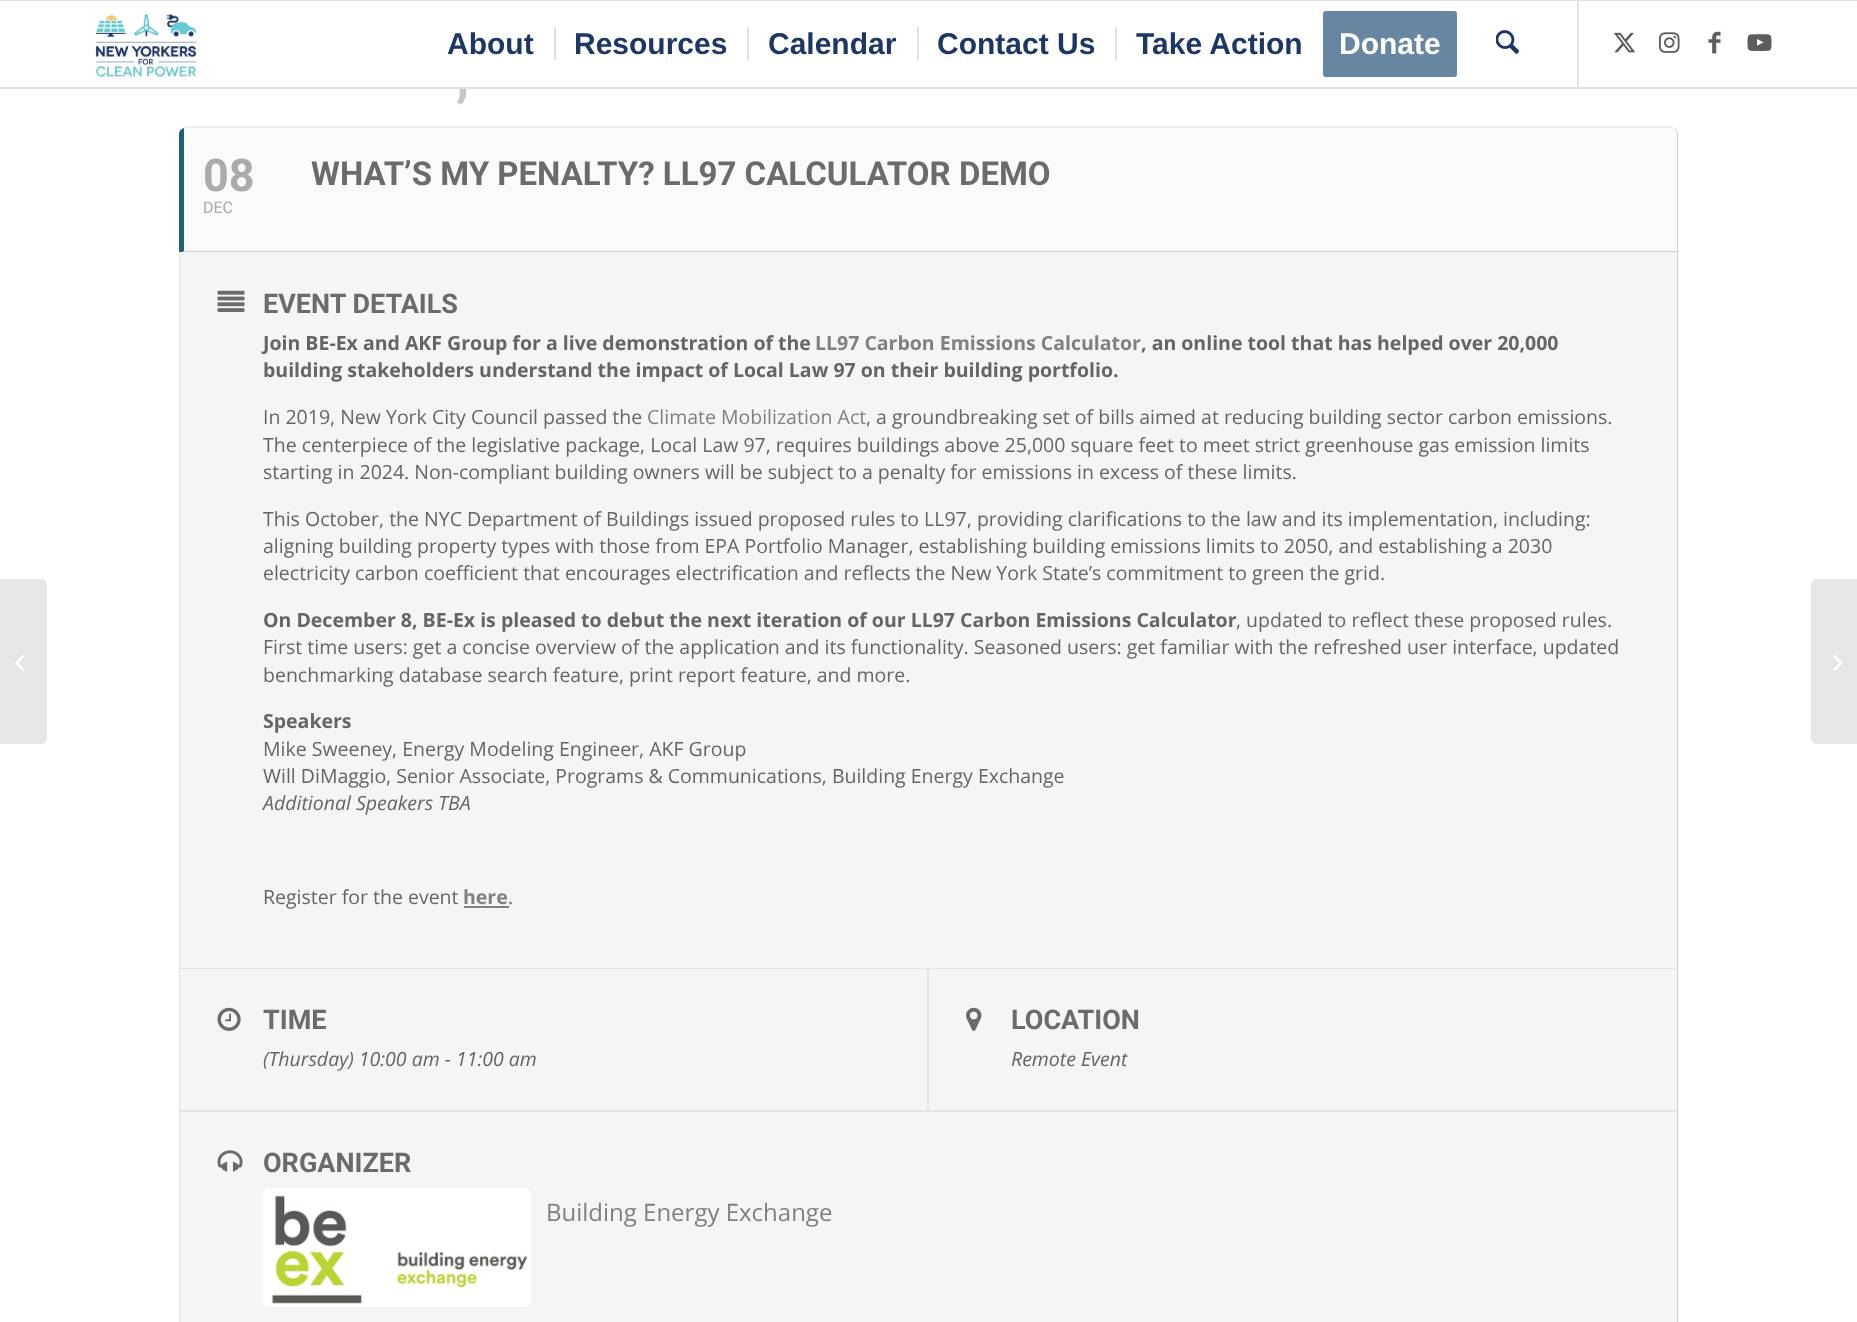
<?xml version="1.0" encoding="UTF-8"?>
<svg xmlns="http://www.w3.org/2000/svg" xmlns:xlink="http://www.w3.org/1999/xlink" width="1857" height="1322">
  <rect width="100%" height="100%" fill="#ffffff" />
  <rect x="1577" width="2" height="87" fill="#e1e1e1" />
  <rect width="1857" height="1" fill="#e1e1e1" />
  <image x="75" y="1" width="149" height="76" xlink:href="image1.png" />
  <rect x="554" y="27" width="2" height="33" fill="#e1e1e1" />
  <rect x="747" y="27" width="2" height="33" fill="#e1e1e1" />
  <rect x="917" y="27" width="2" height="33" fill="#e1e1e1" />
  <rect x="1115" y="27" width="2" height="33" fill="#e1e1e1" />
  <rect x="1324.5" y="12.5" width="131" height="63" rx="1.5" fill="#6786a1" stroke="#6786a1" stroke-width="3" />
  <image x="1496" y="30" width="24" height="24" xlink:href="image2.png" />
  <image x="1613" y="32" width="23" height="21" xlink:href="image3.png" />
  <image x="1659" y="32" width="21" height="21" xlink:href="image4.png" />
  <image x="1708" y="31" width="13" height="23" xlink:href="image5.png" />
  <image x="1747" y="34" width="25" height="18" xlink:href="image6.png" />
  <path d="M 0 579 h 41 c 3.5 0 6 2.5 6 6 v 153 c 0 3.5 -2.5 6 -6 6 h -41 z" fill="#e6e6e6" />
  <image x="15" y="654" width="9" height="18" xlink:href="image7.png" />
  <path d="M 188 126 h 1482 c 2 0 4 1 6 3 l -1 1 c -1 -1 -3 -2 -5 -2 h -1482 c -3 0 -7 1 -9 4 c 2 -4 5 -6 9 -6 z" fill="#efeeee" />
  <path d="M 1676 129 l -1 1 c 1 1 2 3 2 5 v 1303 c 0 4 -2 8 -5 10 c 3 -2 6 -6 6 -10 v -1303 c 0 -2 -1 -5 -2 -6 z" fill="#cdcdcd" />
  <path d="M 179 134 v -2 c 1 -2 3 -3 5 -4 h 1488 c 3 1 5 4 5 7 v 117 h -1498 z" fill="#fafafa" />
  <path d="M 179 134 c 0 -3 2 -5 5 -6 v 124 h -5 z" fill="#206177" />
  <rect x="183" y="251" width="1494" height="1" fill="#cdcdcd" />
  <path d="M 179 252 h 2 v 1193 c -1 -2 -2 -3 -2 -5 z" fill="#e5e5e5" />
  <rect x="180" y="252" width="1497" height="716" fill="#f5f5f5" />
  <rect x="180" y="968" width="1497" height="1" fill="#e5e5e5" />
  <image x="217" y="290" width="28" height="22" xlink:href="image8.png" />
  <rect x="464" y="906" width="45" height="2" fill="#808080" />
  <rect x="180" y="1110" width="1497" height="2" fill="#e5e5e5" />
  <rect x="180" y="969" width="1497" height="141" fill="#f5f5f5" />
  <rect x="927" y="969" width="2" height="141" fill="#e5e5e5" />
  <image x="217" y="1007" width="24" height="24" xlink:href="image9.png" />
  <image x="966" y="1007" width="16" height="24" xlink:href="image10.png" />
  <rect x="180" y="1112" width="1497" height="210" fill="#f5f5f5" />
  <image x="217" y="1150" width="26" height="22" xlink:href="image11.png" />
  <image x="263" y="1188" width="268" height="119" xlink:href="image12.png" />
  <path d="M 1817 579 h 40 v 165 h -40 c -3.5 0 -6 -2.5 -6 -6 v -153 c 0 -3.5 2.5 -6 6 -6 z" fill="#e6e6e6" />
  <image x="1833" y="654" width="9" height="18" xlink:href="image13.png" />
  <text x="447" y="54" style="font-family: Arimo; font-size: 30px; font-weight: bold; fill: #1c3665">About</text>
  <text x="574" y="54" style="font-family: Arimo; font-size: 30px; font-weight: bold; fill: #1c3665">Resources</text>
  <text x="768" y="54" style="font-family: Arimo; font-size: 30px; font-weight: bold; fill: #1c3665">Calendar</text>
  <text x="937" y="54" style="font-family: Arimo; font-size: 30px; font-weight: bold; fill: #1c3665">Contact Us</text>
  <text x="1136" y="54" style="font-family: Arimo; font-size: 30px; font-weight: bold; fill: #1c3665">Take Action</text>
  <text x="1339" y="54" style="font-family: Arimo; font-size: 30px; font-weight: bold; fill: #ffffff">Donate</text>
  <text x="456" y="95" style="font-family: Roboto; font-size: 54px; font-weight: bold; fill: #c6c6c6">,</text>
  <rect y="87" width="1857" height="2" fill="#e1e1e1" />
  <text x="203" y="191" style="font-family: Roboto; font-size: 45px; font-weight: bold; fill: #ababab">08</text>
  <text x="203" y="213" style="font-family: Roboto; font-size: 16px; fill: #ababab">DEC</text>
  <text x="311" y="185" style="font-family: Roboto; font-size: 33px; font-weight: bold; fill: #6b6b6b">WHAT’S MY PENALTY? LL97 CALCULATOR DEMO</text>
  <text x="263" y="313" style="font-family: Roboto; font-size: 27px; font-weight: bold; fill: #6b6b6b">EVENT DETAILS</text>
  <text x="263" y="350" style="font-family: Open Sans; font-size: 19.5px; font-weight: bold; fill: #656565">Join BE-Ex and AKF Group for a live demonstration of the</text>
  <text x="815" y="350" style="font-family: Open Sans; font-size: 19.5px; font-weight: bold; fill: #808080">LL97 Carbon Emissions Calculator</text>
  <text x="1141" y="350" style="font-family: Open Sans; font-size: 19.5px; font-weight: bold; fill: #656565">, an online tool that has helped over 20,000</text>
  <text x="263" y="377" style="font-family: Open Sans; font-size: 19.5px; font-weight: bold; fill: #656565">building stakeholders understand the impact of Local Law 97 on their building portfolio.</text>
  <text x="263" y="424" style="font-family: Open Sans; font-size: 19.5px; fill: #656565">In 2019, New York City Council passed the</text>
  <text x="647" y="424" style="font-family: Open Sans; font-size: 19.5px; fill: #808080">Climate Mobilization Act</text>
  <text x="866" y="424" style="font-family: Open Sans; font-size: 19.5px; fill: #656565">, a groundbreaking set of bills aimed at reducing building sector carbon emissions.</text>
  <text x="263" y="452" style="font-family: Open Sans; font-size: 19.5px; fill: #656565">The centerpiece of the legislative package, Local Law 97, requires buildings above 25,000 square feet to meet strict greenhouse gas emission limits</text>
  <text x="263" y="479" style="font-family: Open Sans; font-size: 19.5px; fill: #656565">starting in 2024. Non-compliant building owners will be subject to a penalty for emissions in excess of these limits.</text>
  <text x="263" y="526" style="font-family: Open Sans; font-size: 19.5px; fill: #656565">This October, the NYC Department of Buildings issued proposed rules to LL97, providing clarifications to the law and its implementation, including:</text>
  <text x="263" y="553" style="font-family: Open Sans; font-size: 19.5px; fill: #656565">aligning building property types with those from EPA Portfolio Manager, establishing building emissions limits to 2050, and establishing a 2030</text>
  <text x="263" y="580" style="font-family: Open Sans; font-size: 19.5px; fill: #656565">electricity carbon coefficient that encourages electrification and reflects the New York State’s commitment to green the grid.</text>
  <text x="263" y="627" style="font-family: Open Sans; font-size: 19.5px; font-weight: bold; fill: #656565">On December 8, BE-Ex is pleased to debut the next iteration of our LL97 Carbon Emissions Calculator</text>
  <text x="1236" y="627" style="font-family: Open Sans; font-size: 19.5px; fill: #656565">, updated to reflect these proposed rules.</text>
  <text x="263" y="654" style="font-family: Open Sans; font-size: 19.5px; fill: #656565">First time users: get a concise overview of the application and its functionality. Seasoned users: get familiar with the refreshed user interface, updated</text>
  <text x="263" y="682" style="font-family: Open Sans; font-size: 19.5px; fill: #656565">benchmarking database search feature, print report feature, and more.</text>
  <text x="263" y="728" style="font-family: Open Sans; font-size: 19.5px; font-weight: bold; fill: #656565">Speakers</text>
  <text x="263" y="756" style="font-family: Open Sans; font-size: 19.5px; fill: #656565">Mike Sweeney, Energy Modeling Engineer, AKF Group</text>
  <text x="263" y="783" style="font-family: Open Sans; font-size: 19.5px; fill: #656565">Will DiMaggio, Senior Associate, Programs &amp; Communications, Building Energy Exchange</text>
  <text x="263" y="810" style="font-family: Open Sans; font-size: 19.5px; font-style: italic; fill: #656565">Additional Speakers TBA</text>
  <text x="263" y="904" style="font-family: Open Sans; font-size: 19.5px; fill: #656565">Register for the event</text>
  <text x="463" y="904" style="font-family: Open Sans; font-size: 19.5px; font-weight: bold; fill: #808080">here</text>
  <text x="508" y="904" style="font-family: Open Sans; font-size: 19.5px; fill: #656565">.</text>
  <text x="263" y="1029" style="font-family: Roboto; font-size: 27px; font-weight: bold; fill: #6b6b6b">TIME</text>
  <text x="263" y="1066" style="font-family: Open Sans; font-size: 19.5px; font-style: italic; fill: #656565">(Thursday) 10:00 am - 11:00 am</text>
  <text x="1011" y="1029" style="font-family: Roboto; font-size: 27px; font-weight: bold; fill: #6b6b6b">LOCATION</text>
  <text x="1011" y="1066" style="font-family: Open Sans; font-size: 19.5px; font-style: italic; fill: #656565">Remote Event</text>
  <text x="263" y="1172" style="font-family: Roboto; font-size: 27px; font-weight: bold; fill: #6b6b6b">ORGANIZER</text>
  <text x="546" y="1221" style="font-family: Open Sans; font-size: 24px; fill: #808080">Building Energy Exchange</text>
</svg>
